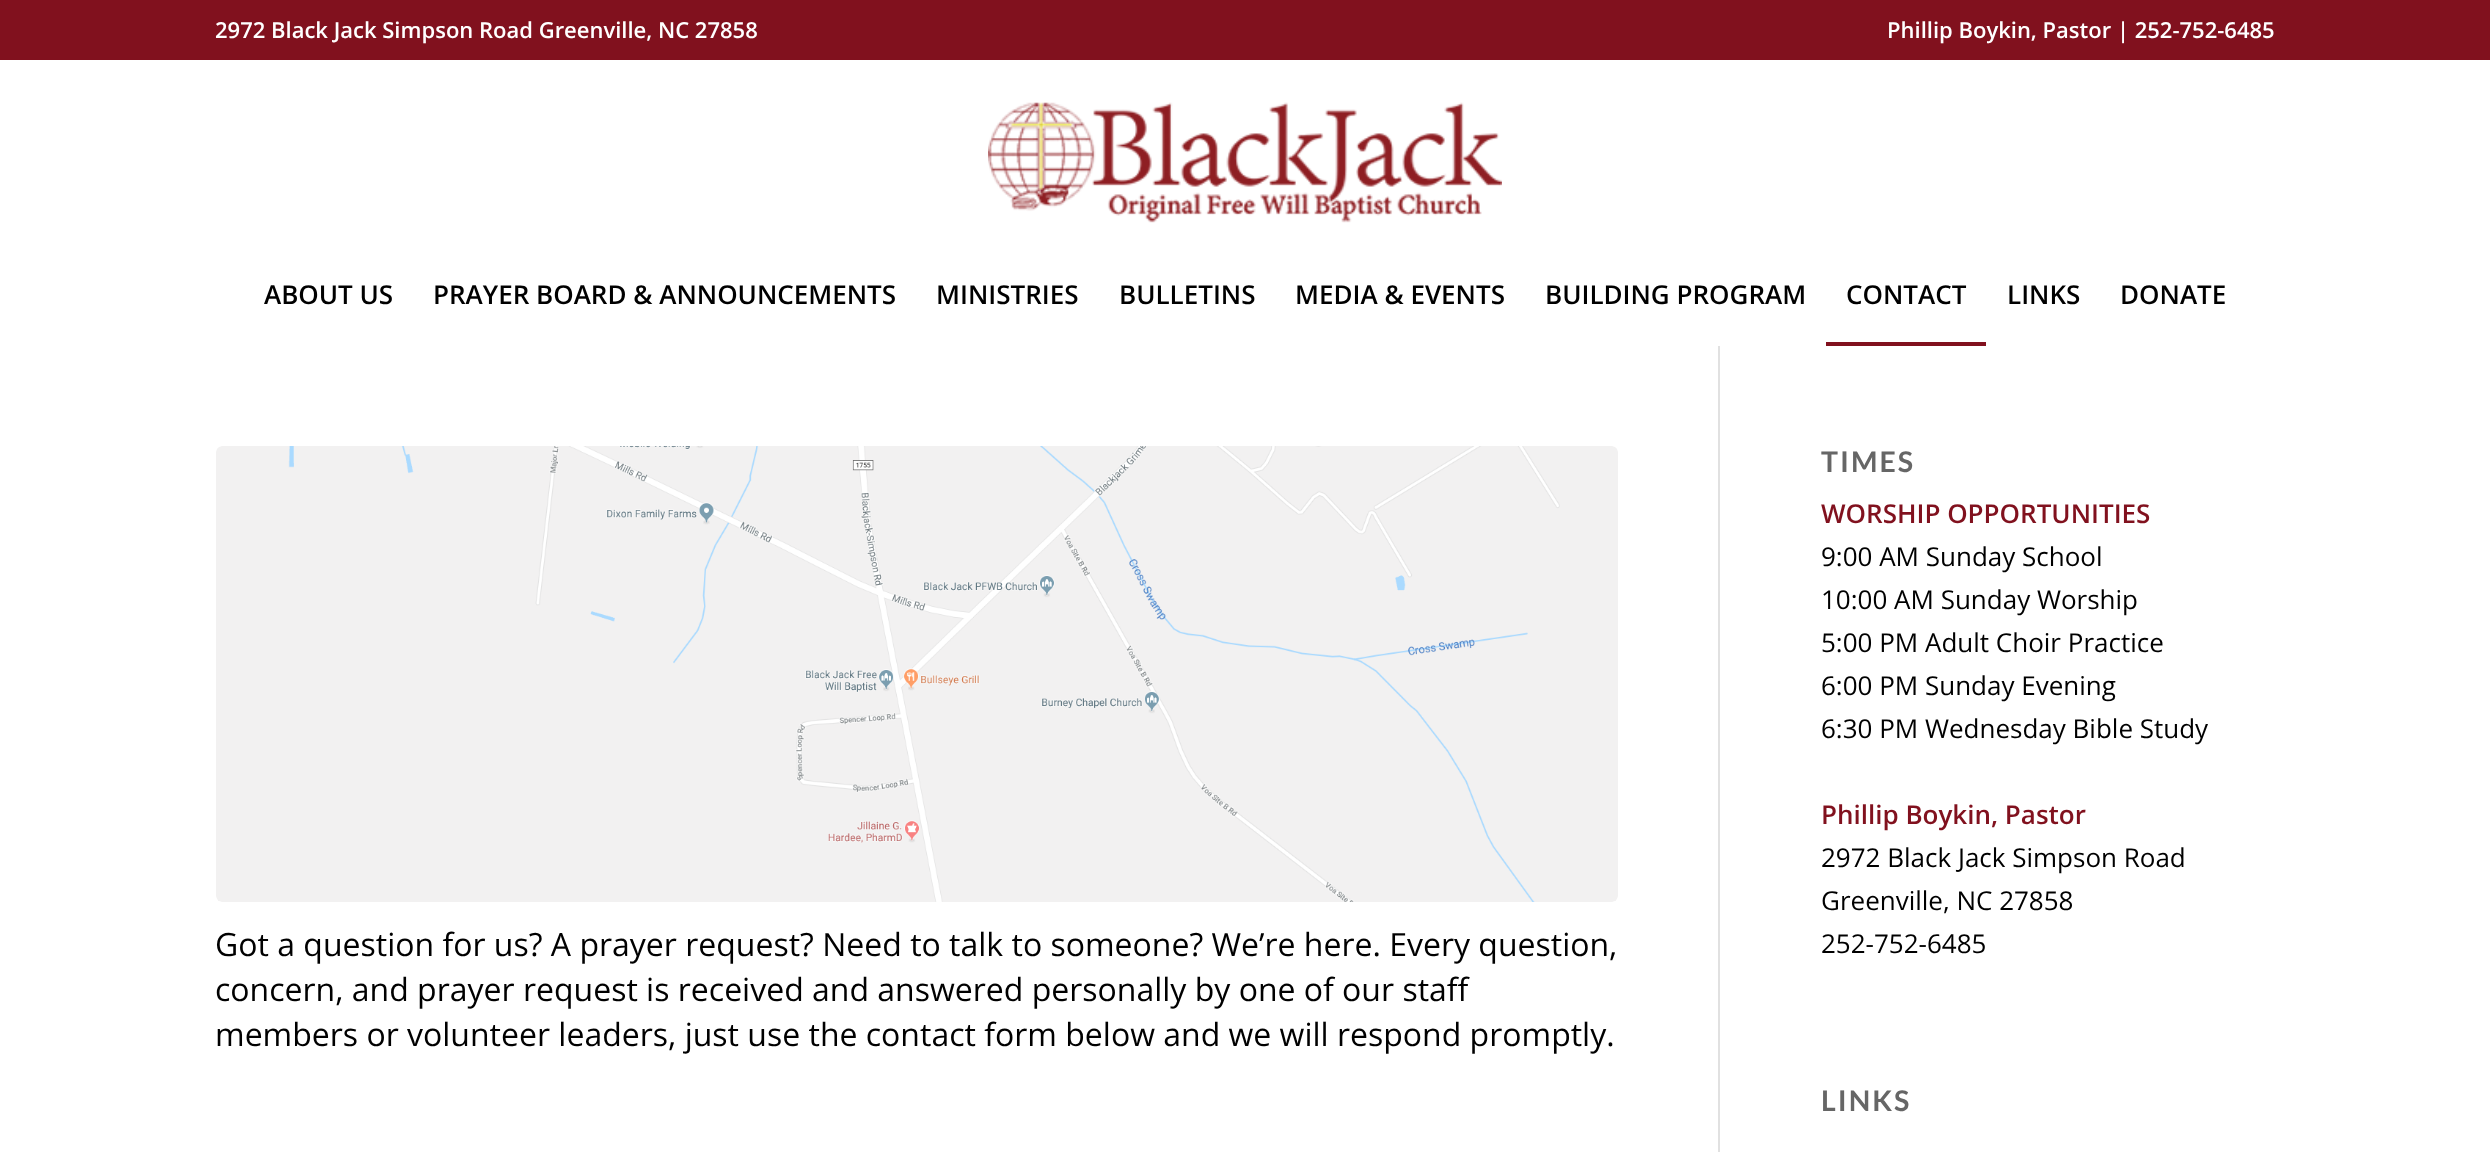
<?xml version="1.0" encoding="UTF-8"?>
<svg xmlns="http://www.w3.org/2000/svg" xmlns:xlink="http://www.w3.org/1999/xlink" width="2490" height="1152">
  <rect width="100%" height="100%" fill="#ffffff" />
  <rect width="2490" height="60" fill="#81111e" />
  <image x="988" y="102" width="514" height="121" xlink:href="image1.png" />
  <rect x="1826" y="342" width="160" height="4" fill="#81111e" />
  <rect x="1718" y="346" width="2" height="806" fill="#e1e1e1" />
  <image x="216" y="446" width="1402" height="456" xlink:href="image2.png" />
  <text x="215" y="38" style="font-family: Open Sans; font-size: 22px; font-weight: 600; fill: #ffffff">2972 Black Jack Simpson Road Greenville, NC 27858</text>
  <text x="1887" y="38" style="font-family: Open Sans; font-size: 22px; font-weight: 600; fill: #ffffff">Phillip Boykin, Pastor | 252-752-6485</text>
  <text x="264" y="304" style="font-family: Open Sans; font-size: 26px; font-weight: 600; fill: #000000">ABOUT US</text>
  <text x="433" y="304" style="font-family: Open Sans; font-size: 26px; font-weight: 600; fill: #000000">PRAYER BOARD &amp; ANNOUNCEMENTS</text>
  <text x="936" y="304" style="font-family: Open Sans; font-size: 26px; font-weight: 600; fill: #000000">MINISTRIES</text>
  <text x="1119" y="304" style="font-family: Open Sans; font-size: 26px; font-weight: 600; fill: #000000">BULLETINS</text>
  <text x="1295" y="304" style="font-family: Open Sans; font-size: 26px; font-weight: 600; fill: #000000">MEDIA &amp; EVENTS</text>
  <text x="1545" y="304" style="font-family: Open Sans; font-size: 26px; font-weight: 600; fill: #000000">BUILDING PROGRAM</text>
  <text x="1846" y="304" style="font-family: Open Sans; font-size: 26px; font-weight: 600; fill: #000000">CONTACT</text>
  <text x="2007" y="304" style="font-family: Open Sans; font-size: 26px; font-weight: 600; fill: #000000">LINKS</text>
  <text x="2120" y="304" style="font-family: Open Sans; font-size: 26px; font-weight: 600; fill: #000000">DONATE</text>
  <text x="215" y="956" style="font-family: Open Sans; font-size: 32px; fill: #000000">Got a question for us? A prayer request? Need to talk to someone? We’re here. Every question,</text>
  <text x="215" y="1001" style="font-family: Open Sans; font-size: 32px; fill: #000000">concern, and prayer request is received and answered personally by one of our staff</text>
  <text x="215" y="1046" style="font-family: Open Sans; font-size: 32px; fill: #000000">members or volunteer leaders, just use the contact form below and we will respond promptly.</text>
  <text x="1821" y="472" style="font-family: Lato; font-size: 28.5px; font-weight: bold; letter-spacing: 2px; fill: #666666">TIMES</text>
  <text x="1821" y="523" style="font-family: Open Sans; font-size: 26px; font-weight: 600; fill: #81111e">WORSHIP OPPORTUNITIES</text>
  <text x="1821" y="566" style="font-family: Open Sans; font-size: 26px; fill: #000000">9:00 AM Sunday School</text>
  <text x="1821" y="609" style="font-family: Open Sans; font-size: 26px; fill: #000000">10:00 AM Sunday Worship</text>
  <text x="1821" y="652" style="font-family: Open Sans; font-size: 26px; fill: #000000">5:00 PM Adult Choir Practice</text>
  <text x="1821" y="695" style="font-family: Open Sans; font-size: 26px; fill: #000000">6:00 PM Sunday Evening</text>
  <text x="1821" y="738" style="font-family: Open Sans; font-size: 26px; fill: #000000">6:30 PM Wednesday Bible Study</text>
  <text x="1821" y="824" style="font-family: Open Sans; font-size: 26px; font-weight: 600; fill: #81111e">Phillip Boykin, Pastor</text>
  <text x="1821" y="867" style="font-family: Open Sans; font-size: 26px; fill: #000000">2972 Black Jack Simpson Road</text>
  <text x="1821" y="910" style="font-family: Open Sans; font-size: 26px; fill: #000000">Greenville, NC 27858</text>
  <text x="1821" y="953" style="font-family: Open Sans; font-size: 26px; fill: #000000">252-752-6485</text>
  <text x="1821" y="1111" style="font-family: Lato; font-size: 28.5px; font-weight: bold; letter-spacing: 2px; fill: #666666">LINKS</text>
</svg>
